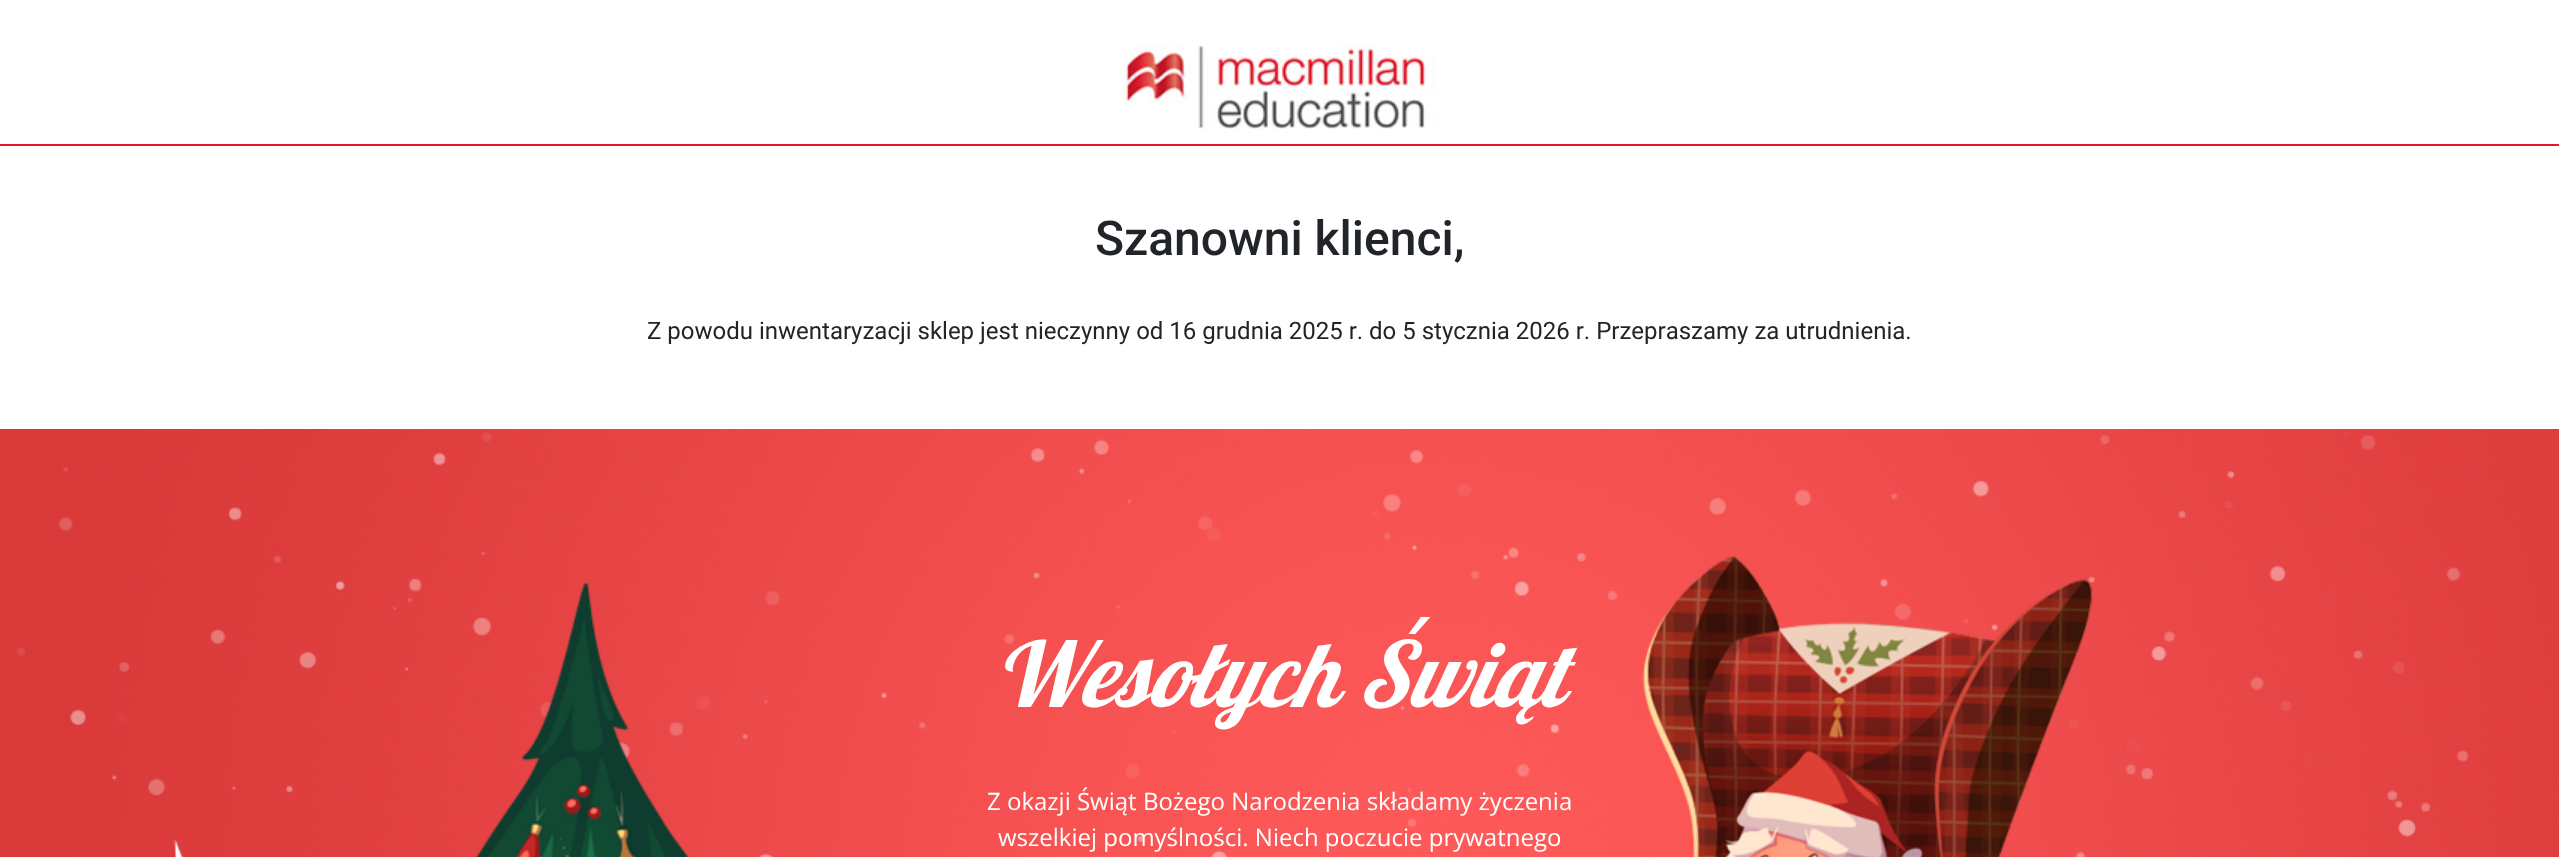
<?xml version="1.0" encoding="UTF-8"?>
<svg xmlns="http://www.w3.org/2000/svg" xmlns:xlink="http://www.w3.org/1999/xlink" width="2559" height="857">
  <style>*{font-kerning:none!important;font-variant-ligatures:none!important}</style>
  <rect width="100%" height="100%" fill="#ffffff" />
  <rect y="144" width="2559" height="2" fill="#da1b2c" />
  <image x="1123" y="45" width="313" height="84" xlink:href="image1.png" />
  <image x="0" y="429" width="2559" height="428" xlink:href="image2.png" />
  <image x="16" y="429" width="2453" height="428" xlink:href="image3.png" />
  <image x="475" y="583" width="214" height="274" xlink:href="image4.png" />
  <image x="1642" y="556" width="451" height="301" xlink:href="image5.png" />
  <text x="1095" y="255" style="font-family: Roboto; font-size: 48px; font-weight: 500; fill: #212529">Szanowni klienci,</text>
  <text x="647" y="339" style="font-family: Roboto; font-size: 24px; fill: #212529">Z powodu inwentaryzacji sklep jest nieczynny od 16 grudnia 2025 r. do 5 stycznia 2026 r. Przepraszamy za utrudnienia.</text>
  <text x="994" y="707" style="font-family: Lobster; font-size: 90px; font-style: italic; fill: #ffffff">Wesołych Świąt</text>
  <text x="987" y="810" style="font-family: Open Sans; font-size: 24px; fill: #ffffff">Z okazji Świąt Bożego Narodzenia składamy życzenia</text>
  <text x="998" y="846" style="font-family: Open Sans; font-size: 24px; fill: #ffffff">wszelkiej pomyślności. Niech poczucie prywatnego</text>
</svg>
